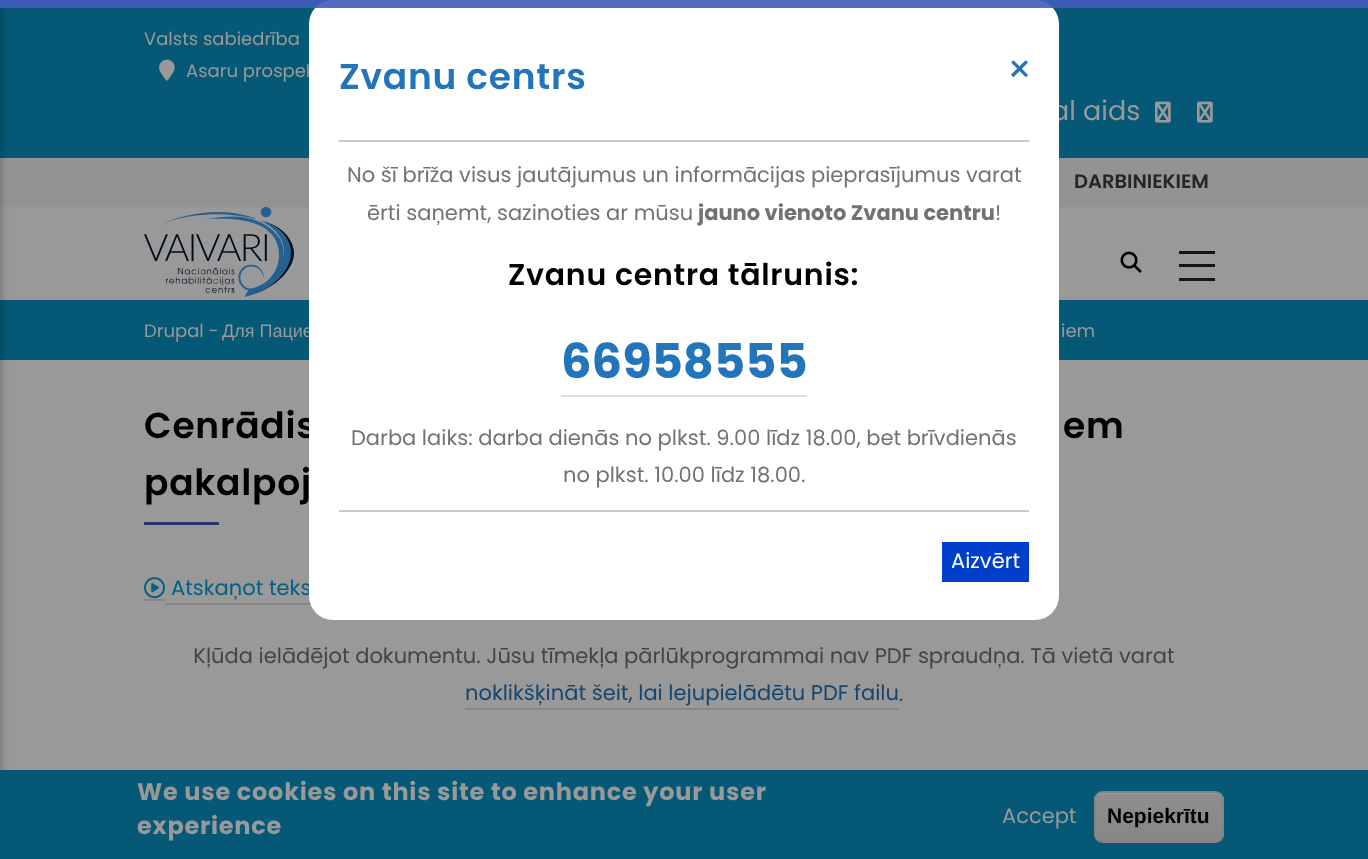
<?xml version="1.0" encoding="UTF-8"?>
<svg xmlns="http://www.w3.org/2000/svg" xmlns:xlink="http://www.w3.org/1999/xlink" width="1368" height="859">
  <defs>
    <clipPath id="clip1"><rect x="1094" y="791" width="130" height="52" rx="9" /></clipPath>
    <linearGradient id="g1" gradientUnits="userSpaceOnUse" x1="1159" y1="792" x2="1159" y2="842"><stop offset="0.05" stop-color="#8e8e8e" /><stop offset="1" stop-color="#868686" /></linearGradient>
  </defs>
  <rect width="100%" height="100%" fill="#999999" />
  <rect width="1368" height="158" fill="#055976" />
  <rect y="158" width="1368" height="49" fill="#949393" />
  <rect y="300" width="1368" height="60" fill="#055976" />
  <rect x="-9" y="5" width="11" height="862" fill="#000000" fill-opacity="0.2" filter="blur(3px)" />
  <image x="1120" y="251" width="22" height="22" xlink:href="image1.png" />
  <rect x="1179" y="251" width="36" height="3" fill="#141414" />
  <rect x="1179" y="264" width="36" height="3" fill="#141414" />
  <rect x="1179" y="278" width="36" height="3" fill="#141414" />
  <image x="144" y="207" width="150" height="90" xlink:href="image2.png" />
  <image x="159" y="59" width="16" height="22" xlink:href="image3.png" />
  <image x="1155" y="101" width="16" height="22" xlink:href="image4.png" />
  <image x="1197" y="101" width="16" height="22" xlink:href="image4.png" />
  <rect x="144" y="522" width="75" height="3" fill="#283770" />
  <rect x="144" y="599" width="21" height="2" fill="#868686" />
  <rect x="165" y="603" width="146" height="2" fill="#868686" />
  <image x="144" y="577" width="21" height="22" xlink:href="image5.png" />
  <image x="194" y="647" width="980" height="55" xlink:href="image6.png" />
  <rect x="465" y="708" width="434" height="2" fill="#868686" />
  <rect y="770" width="1368" height="89" fill="#055976" />
  <g clip-path="url(#clip1)">
    <rect x="1094" y="792" width="130" height="50" fill="url(#g1)" />
  </g>
  <path d="M 1102 794 h 113 c 10 0 7 13 7 19 v 26 c 0 -2 1 -3 1 -5 v -34 c 0 -4 -4 -8 -8 -8 h -112 c -4 0 -8 4 -8 8 v 1 c 0 -4 3 -7 7 -7 z" fill="#999999" />
  <rect x="1095" y="792" width="128" height="50" rx="8" fill="none" stroke="#848484" stroke-width="2" />
  <text x="144" y="45" style="font-family: Poppins; font-size: 18px; fill: #999999">Valsts sabiedrība</text>
  <text x="186" y="77" style="font-family: Poppins; font-size: 18px; fill: #999999">Asaru prospek</text>
  <text x="1051" y="120" style="font-family: Poppins; font-size: 27px; fill: #999999">al aids</text>
  <text x="1074" y="188" style="font-family: Poppins; font-size: 19.5px; font-weight: 600; fill: #252525">DARBINIEKIEM</text>
  <text x="144" y="438" style="font-family: Poppins; font-size: 36px; font-weight: 600; letter-spacing: 0.75px; fill: #000000">Cenrādis</text>
  <text x="1063" y="438" style="font-family: Poppins; font-size: 36px; font-weight: 600; letter-spacing: 0.75px; fill: #000000">em</text>
  <text x="144" y="495" style="font-family: Poppins; font-size: 36px; font-weight: 600; letter-spacing: 0.75px; fill: #000000">pakalpoj</text>
  <text x="171" y="595" style="font-family: Poppins; font-size: 21px; fill: #006280">Atskaņot teks</text>
  <text x="465" y="700" style="font-family: Poppins; font-size: 21px; fill: #154670">noklikšķināt šeit, lai lejupielādētu PDF failu</text>
  <text x="144" y="337" style="font-family: Poppins; font-size: 18px; fill: #999999">Drupal -</text>
  <text x="222" y="337" style="font-family: Liberation Sans; font-size: 18px; fill: #999999">Для Пацие</text>
  <rect x="309" width="750" height="620" rx="24" fill="#ffffff" />
  <rect width="1368" height="8" fill="#425cbb" fill-opacity="0.91" />
  <text x="1007" y="83" style="font-family: Poppins; font-size: 39px; fill: #2375bb">×</text>
  <rect x="942" y="542" width="87" height="40" fill="#003ecc" />
  <text x="951" y="568" style="font-family: Poppins; font-size: 21px; fill: #ffffff">Aizvērt</text>
  <text x="563" y="482" style="font-family: Poppins; font-size: 21px; fill: #727272">no plkst. 10.00 līdz 18.00.</text>
  <text x="351" y="445" style="font-family: Poppins; font-size: 21px; fill: #727272">Darba laiks: darba dienās no plkst. 9.00 līdz 18.00, bet brīvdienās</text>
  <text x="561" y="378" style="font-family: Poppins; font-size: 48px; font-weight: bold; fill: #2375bb">66958555</text>
  <rect x="561" y="395" width="246" height="2" fill="#dfdfdf" />
  <text x="508" y="285" style="font-family: Poppins; font-size: 30px; font-weight: 600; letter-spacing: 0.75px; fill: #000000">Zvanu centra tālrunis:</text>
  <text x="995" y="220" style="font-family: Poppins; font-size: 21px; fill: #727272">!</text>
  <text x="698" y="220" style="font-family: Poppins; font-size: 21px; font-weight: bold; fill: #727272">jauno vienoto Zvanu centru</text>
  <text x="367" y="220" style="font-family: Poppins; font-size: 21px; fill: #727272">ērti saņemt, sazinoties ar mūsu</text>
  <text x="347" y="182" style="font-family: Poppins; font-size: 21px; fill: #727272">No šī brīža visus jautājumus un informācijas pieprasījumus varat</text>
  <text x="339" y="89" style="font-family: Poppins; font-size: 36px; font-weight: 600; letter-spacing: 0.75px; fill: #2375bb">Zvanu centrs</text>
  <rect x="339" y="510" width="690" height="2" fill="#ccc9c9" />
  <rect x="339" y="140" width="690" height="2" fill="#ccc9c9" />
  <text x="1061" y="337" style="font-family: Poppins; font-size: 18px; fill: #999999">iem</text>
  <text x="137" y="800" style="font-family: Poppins; font-size: 24px; font-weight: bold; letter-spacing: 0.75px; fill: #999999">We use cookies on this site to enhance your user</text>
  <text x="137" y="834" style="font-family: Poppins; font-size: 24px; font-weight: bold; letter-spacing: 0.75px; fill: #999999">experience</text>
  <text x="1002" y="823" style="font-family: Poppins; font-size: 21px; fill: #999999">Accept</text>
  <text x="1107" y="823" style="font-family: Liberation Sans; font-size: 21px; font-weight: bold; fill: #000000">Nepiekrītu</text>
</svg>
